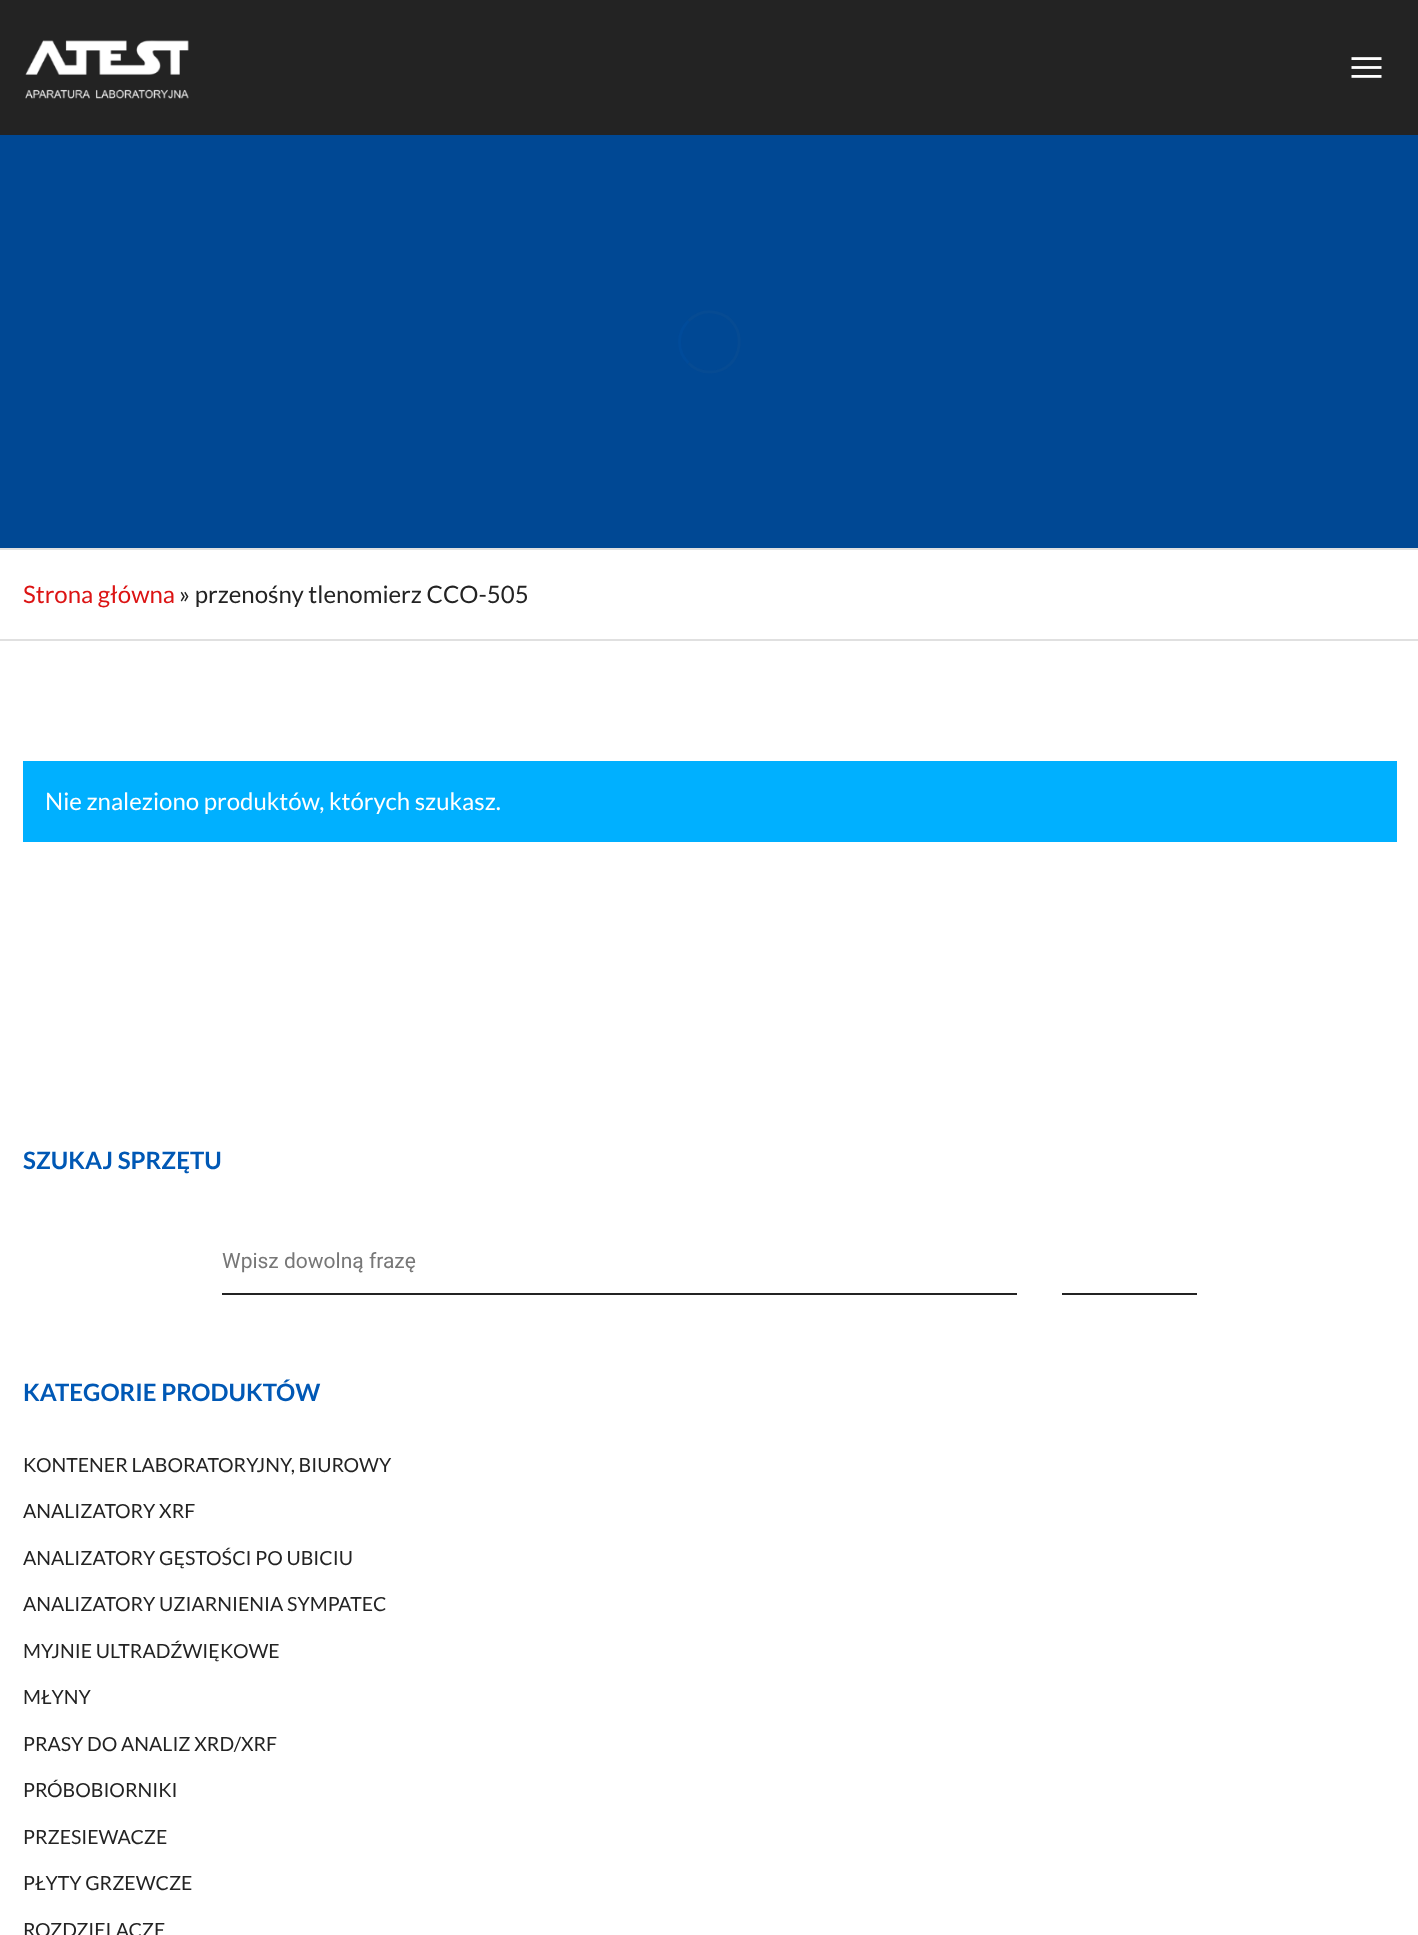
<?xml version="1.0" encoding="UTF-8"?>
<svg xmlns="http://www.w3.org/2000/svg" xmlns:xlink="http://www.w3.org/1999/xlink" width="1418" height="1935">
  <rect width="100%" height="100%" fill="#ffffff" />
  <rect width="1418" height="135" fill="#232323" />
  <image x="25" y="40" width="164" height="59" xlink:href="image1.png" />
  <image x="1351" y="57" width="31" height="21" xlink:href="image2.png" />
  <rect y="135" width="1418" height="413" fill="#004894" />
  <path d="M 688.5 321 c 7 -7 17 -10.5 27 -8.5 c 35 7 30 59.5 -6 59.5 c -8 0 -15.5 -3 -21 -9" fill="none" stroke="#064b93" stroke-width="3" />
  <path d="M 688.5 363 c -12 -11.5 -12 -30.5 0 -42" fill="none" stroke="#004b9a" stroke-width="3" />
  <rect y="548" width="1418" height="2" fill="#e0e0e0" />
  <rect y="639" width="1418" height="2" fill="#e0e0e0" />
  <rect x="23" y="761" width="1374" height="81" fill="#00b0ff" />
  <rect x="222" y="1293" width="975" height="2" fill="#232323" />
  <rect x="1017" y="1293" width="45" height="2" fill="#ffffff" />
  <text x="23" y="603" style="font-family: Lato; font-size: 24px; fill: #dc1414">Strona główna</text>
  <text x="179" y="603" style="font-family: Lato; font-size: 24px; fill: #232323">» przenośny tlenomierz CCO-505</text>
  <text x="45" y="810" style="font-family: Lato; font-size: 24px; fill: #ffffff">Nie znaleziono produktów, których szukasz.</text>
  <text x="23" y="1169" style="font-family: Lato; font-size: 24px; font-weight: bold; fill: #0058b5">SZUKAJ SPRZĘTU</text>
  <text x="222" y="1268" style="font-family: Roboto; font-size: 21px; fill: #777777">Wpisz dowolną frazę</text>
  <text x="23" y="1401" style="font-family: Lato; font-size: 24px; font-weight: bold; fill: #0058b5">KATEGORIE PRODUKTÓW</text>
  <text x="23" y="1472" style="font-family: Lato; font-size: 19.5px; fill: #232323">KONTENER LABORATORYJNY, BIUROWY</text>
  <text x="23" y="1518" style="font-family: Lato; font-size: 19.5px; fill: #232323">ANALIZATORY XRF</text>
  <text x="23" y="1565" style="font-family: Lato; font-size: 19.5px; fill: #232323">ANALIZATORY GĘSTOŚCI PO UBICIU</text>
  <text x="23" y="1611" style="font-family: Lato; font-size: 19.5px; fill: #232323">ANALIZATORY UZIARNIENIA SYMPATEC</text>
  <text x="23" y="1658" style="font-family: Lato; font-size: 19.5px; fill: #232323">MYJNIE ULTRADŹWIĘKOWE</text>
  <text x="23" y="1704" style="font-family: Lato; font-size: 19.5px; fill: #232323">MŁYNY</text>
  <text x="23" y="1751" style="font-family: Lato; font-size: 19.5px; fill: #232323">PRASY DO ANALIZ XRD/XRF</text>
  <text x="23" y="1797" style="font-family: Lato; font-size: 19.5px; fill: #232323">PRÓBOBIORNIKI</text>
  <text x="23" y="1844" style="font-family: Lato; font-size: 19.5px; fill: #232323">PRZESIEWACZE</text>
  <text x="23" y="1890" style="font-family: Lato; font-size: 19.5px; fill: #232323">PŁYTY GRZEWCZE</text>
  <text x="23" y="1937" style="font-family: Lato; font-size: 19.5px; fill: #232323">ROZDZIELACZE</text>
</svg>
